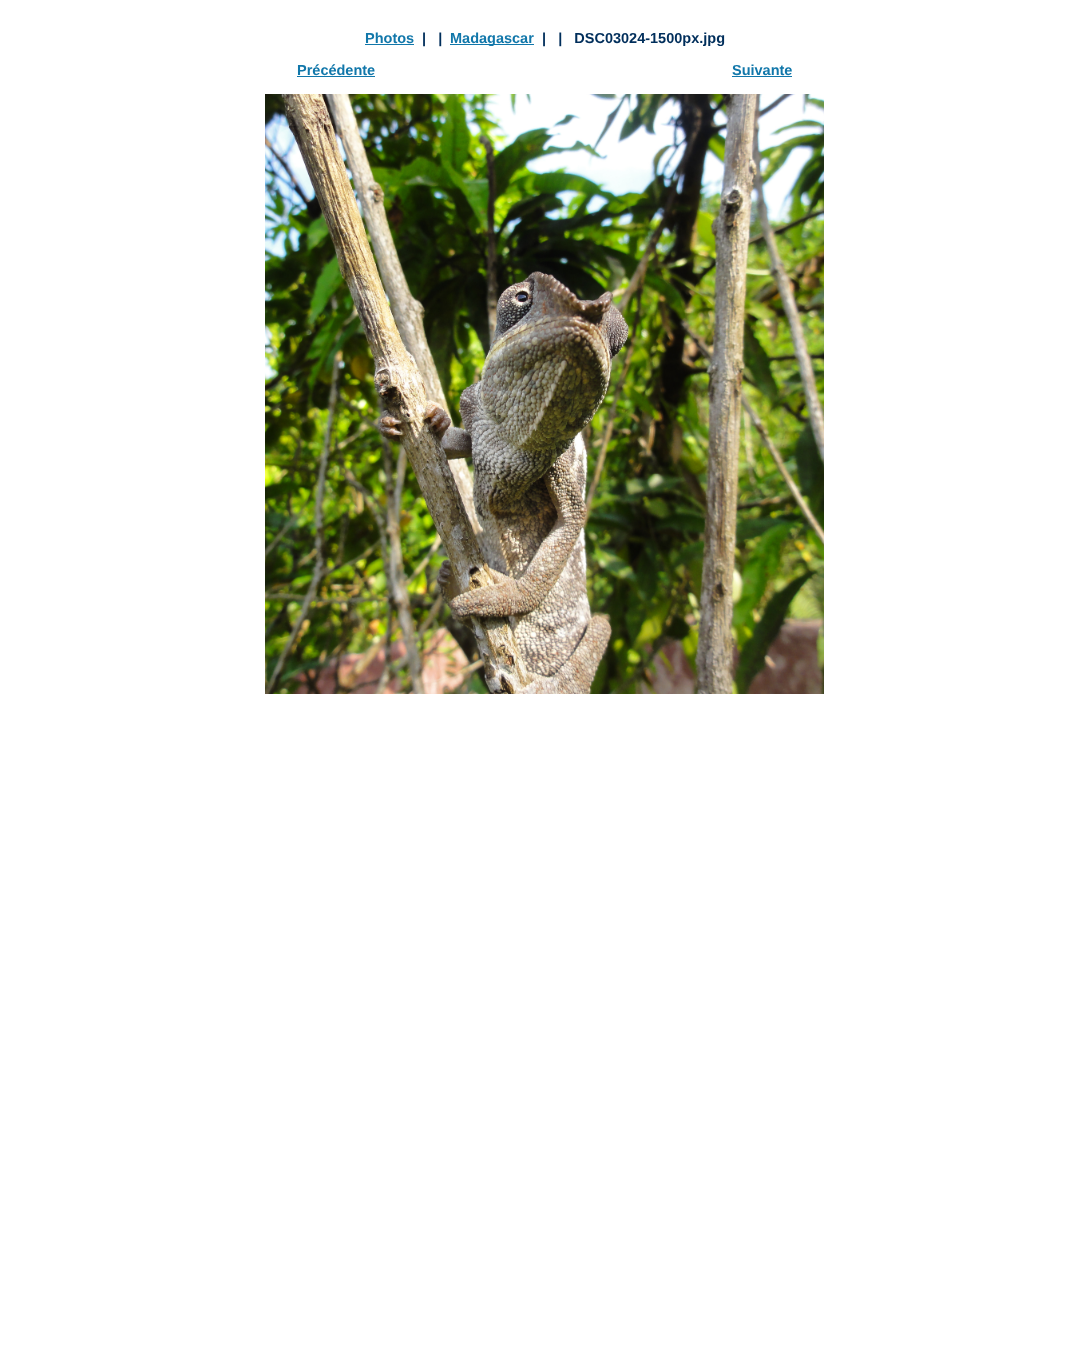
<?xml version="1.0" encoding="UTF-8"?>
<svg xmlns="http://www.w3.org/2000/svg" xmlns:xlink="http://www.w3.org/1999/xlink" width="1089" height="1349">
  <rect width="100%" height="100%" fill="#ffffff" />
  <rect x="365" y="44" width="49" height="1" fill="#1177aa" />
  <rect x="450" y="44" width="84" height="1" fill="#1177aa" />
  <rect x="297" y="76" width="78" height="1" fill="#1177aa" />
  <rect x="732" y="76" width="60" height="1" fill="#1177aa" />
  <image x="265" y="94" width="559" height="600" xlink:href="image1.png" />
  <text x="365" y="43" style="font-family: Liberation Sans; font-size: 14.5px; font-weight: bold; fill: #1177aa">Photos</text>
  <text x="422" y="43" style="font-family: Liberation Sans; font-size: 14.5px; font-weight: bold; fill: #002e5b" xml:space="preserve">|   |</text>
  <text x="450" y="43" style="font-family: Liberation Sans; font-size: 14.5px; font-weight: bold; fill: #1177aa">Madagascar</text>
  <text x="542" y="43" style="font-family: Liberation Sans; font-size: 14.5px; font-weight: bold; fill: #002e5b" xml:space="preserve">|   |   DSC03024-1500px.jpg</text>
  <text x="297" y="75" style="font-family: Liberation Sans; font-size: 14.5px; font-weight: bold; fill: #1177aa">Précédente</text>
  <text x="732" y="75" style="font-family: Liberation Sans; font-size: 14.5px; font-weight: bold; fill: #1177aa">Suivante</text>
</svg>
